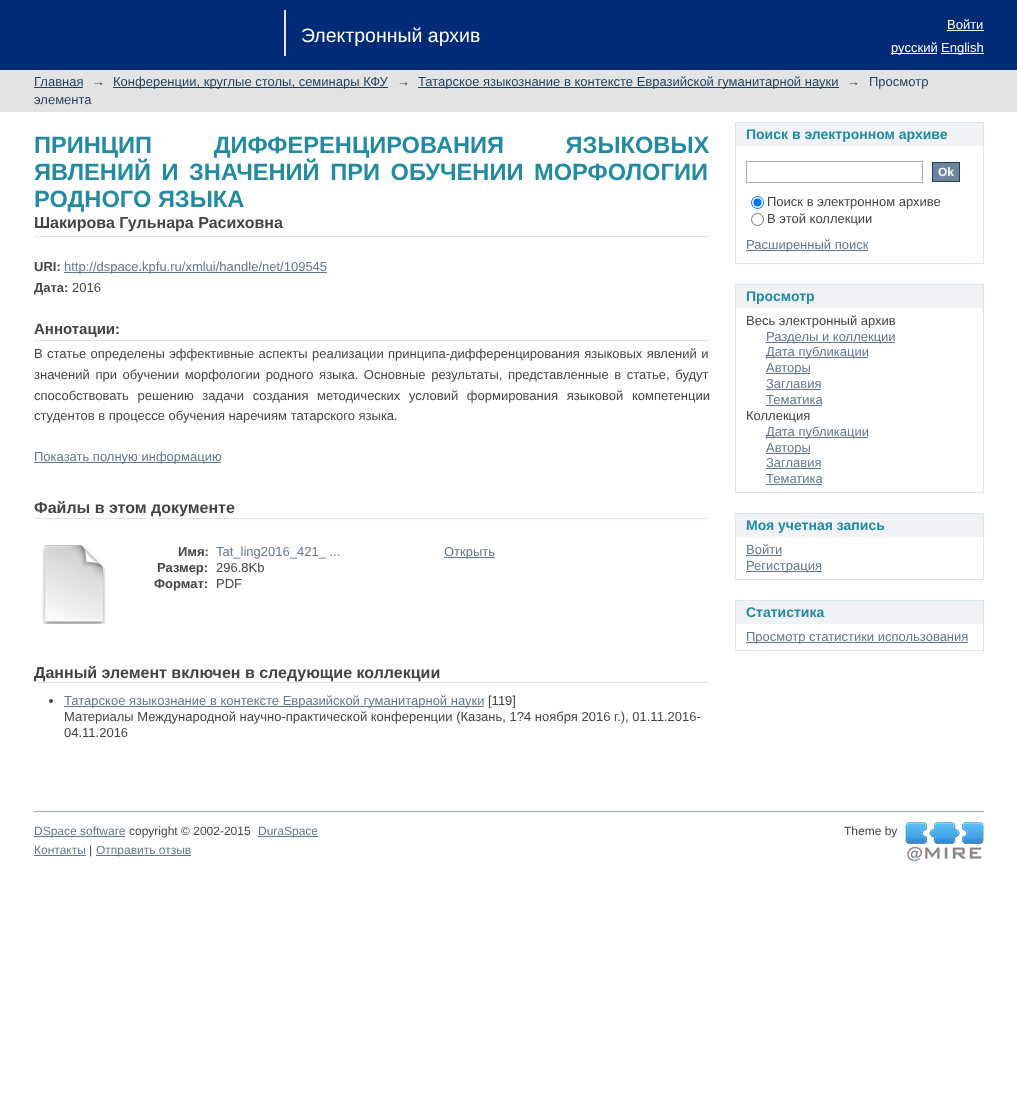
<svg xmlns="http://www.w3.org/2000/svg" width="1017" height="1098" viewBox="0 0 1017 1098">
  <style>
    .t1 { font: 13px Liberation Sans; fill: #fff; }
    .t2 { font: 19.5px Liberation Sans; fill: #fff; }
    .t3 { font: 13px Liberation Sans; fill: #1f3f5e; }
    .t4 { font: bold 23.65px Liberation Sans; fill: #228aa2; }
    .t5 { font: bold 16px Liberation Sans; fill: #444; }
    .t6 { font: bold 13px Liberation Sans; fill: #444; }
    .t7 { font: 13px Liberation Sans; fill: #607890; }
    .t8 { font: 13px Liberation Sans; fill: #444; }
    .t9 { font: bold 15px Liberation Sans; fill: #444; }
    .t10 { font: bold 14px Liberation Sans; fill: #228aa2; }
    .t11 { font: bold 12px Liberation Sans; fill: #fff; }
    .t12 { font: 12px Liberation Sans; fill: #607890; }
    .t13 { font: 12px Liberation Sans; fill: #444; }
  </style>
  <rect width="100%" height="100%" fill="#fff"/>
  <rect x="0" y="0" width="1017" height="70" fill="#012a77"/>
  <text x="947" y="29" class="t1">Войти</text>
  <rect x="947" y="30" width="37" height="1" fill="#fff"/>
  <rect x="284" y="10" width="2" height="46" fill="#e3e3e3"/>
  <text x="301" y="42" class="t2">Электронный архив</text>
  <rect x="891" y="53" width="46" height="1" fill="#fff"/>
  <text x="891" y="52" class="t1">русский</text>
  <rect x="941" y="53" width="43" height="1" fill="#fff"/>
  <text x="941" y="52" class="t1">English</text>
  <rect x="0" y="70" width="1017" height="42" fill="#e3e3e3"/>
  <text x="34" y="86" class="t3">Главная</text>
  <rect x="34" y="87" width="49" height="1" fill="#1f3f5e"/>
  <text x="92" y="86" class="t3">→</text>
  <rect x="113" y="87" width="275" height="1" fill="#1f3f5e"/>
  <text x="113" y="86" class="t3">Конференции, круглые столы, семинары КФУ</text>
  <text x="397" y="86" class="t3">→</text>
  <rect x="418" y="87" width="421" height="1" fill="#1f3f5e"/>
  <text x="418" y="86" class="t3">Татарское языкознание в контексте Евразийской гуманитарной науки</text>
  <text x="847" y="86" class="t3">→</text>
  <text x="869" y="86" class="t3">Просмотр</text>
  <text x="34" y="104" class="t3">элемента</text>
  <text x="34" y="153" word-spacing="55" class="t4">ПРИНЦИП ДИФФЕРЕНЦИРОВАНИЯ ЯЗЫКОВЫХ</text>
  <text x="34" y="180" word-spacing="4" class="t4">ЯВЛЕНИЙ И ЗНАЧЕНИЙ ПРИ ОБУЧЕНИИ МОРФОЛОГИИ</text>
  <text x="34" y="207" class="t4">РОДНОГО ЯЗЫКА</text>
  <rect x="34" y="236" width="675" height="1" fill="#d8e8eb"/>
  <text x="34" y="228" class="t5">Шакирова Гульнара Расиховна</text>
  <text x="34" y="271" class="t6">URI:</text>
  <rect x="64" y="272" width="263" height="1" fill="#607890"/>
  <text x="64" y="271" class="t7">http://dspace.kpfu.ru/xmlui/handle/net/109545</text>
  <text x="34" y="292" class="t6">Дата:</text>
  <text x="72" y="292" class="t8">2016</text>
  <rect x="34" y="340" width="675" height="1" fill="#d8e8eb"/>
  <text x="34" y="334" class="t9">Аннотации:</text>
  <text x="34" y="358" word-spacing="0.75" class="t8">В статье определены эффективные аспекты реализации принципа-дифференцирования языковых явлений и</text>
  <text x="34" y="379" word-spacing="2" class="t8">значений при обучении морфологии родного языка. Основные результаты, представленные в статье, будут</text>
  <text x="34" y="400" word-spacing="5" class="t8">способствовать решению задачи создания методических условий формирования языковой компетенции</text>
  <text x="34" y="420" class="t8">студентов в процессе обучения наречиям татарского языка.</text>
  <rect x="34" y="462" width="187" height="1" fill="#607890"/>
  <text x="34" y="461" class="t7">Показать полную информацию</text>
  <rect x="34" y="518" width="675" height="1" fill="#d8e8eb"/>
  <text x="34" y="513" class="t5">Файлы в этом документе</text>
  <image x="42" y="545" width="64" height="79" href="images/1.png"/>
  <text x="178" y="556" class="t6">Имя:</text>
  <text x="216" y="556" class="t7">Tat_ling2016_421_ ...</text>
  <text x="157" y="572" class="t6">Размер:</text>
  <text x="216" y="572" class="t8">296.8Kb</text>
  <text x="154" y="588" class="t6">Формат:</text>
  <text x="216" y="588" class="t8">PDF</text>
  <rect x="444" y="557" width="51" height="1" fill="#607890"/>
  <text x="444" y="556" class="t7">Открыть</text>
  <rect x="34" y="682" width="675" height="1" fill="#d8e8eb"/>
  <text x="34" y="678" class="t5">Данный элемент включен в следующие коллекции</text>
  <circle cx="51" cy="701" r="2" fill="#444"/>
  <rect x="64" y="706" width="420" height="1" fill="#607890"/>
  <text x="64" y="705" class="t7">Татарское языкознание в контексте Евразийской гуманитарной науки</text>
  <text x="488" y="705" class="t8">[119]</text>
  <text x="64" y="721" class="t8">Материалы Международной научно-практической конференции (Казань, 1?4 ноября 2016 г.), 01.11.2016-</text>
  <text x="64" y="737" class="t8">04.11.2016</text>
  <rect x="736" y="123" width="247" height="23" fill="#f0f2f5"/>
  <rect x="735" y="122" width="249" height="1" fill="#d8e8eb"/>
  <rect x="983" y="122" width="1" height="142" fill="#d8e8eb"/>
  <rect x="735" y="122" width="1" height="24" fill="#d8e8eb"/>
  <text x="746" y="139" class="t10">Поиск в электронном архиве</text>
  <rect x="735" y="263" width="249" height="1" fill="#d8e8eb"/>
  <rect x="735" y="146" width="1" height="118" fill="#d8e8eb"/>
  <rect x="746.5" y="161.5" width="176" height="21" fill="none" stroke="#aaa"/>
  <rect x="932.5" y="162.5" width="27" height="19" fill="#6d859c" stroke="#1f3f5e"/>
  <text x="938" y="176" class="t11">Ok</text>
  <circle cx="757.5" cy="202.5" r="6" fill="none" stroke="#0075ff"/>
  <circle cx="757.5" cy="202.5" r="4" fill="#0075ff"/>
  <text x="767" y="206" class="t8">Поиск в электронном архиве</text>
  <circle cx="757.5" cy="219.5" r="6" fill="none" stroke="#767676"/>
  <text x="767" y="223" class="t8">В этой коллекции</text>
  <rect x="746" y="250" width="122" height="1" fill="#607890"/>
  <text x="746" y="249" class="t7">Расширенный поиск</text>
  <rect x="736" y="285" width="247" height="23" fill="#f0f2f5"/>
  <rect x="735" y="284" width="249" height="1" fill="#d8e8eb"/>
  <rect x="983" y="284" width="1" height="209" fill="#d8e8eb"/>
  <rect x="735" y="284" width="1" height="24" fill="#d8e8eb"/>
  <text x="746" y="301" class="t10">Просмотр</text>
  <rect x="735" y="492" width="249" height="1" fill="#d8e8eb"/>
  <rect x="735" y="308" width="1" height="185" fill="#d8e8eb"/>
  <text x="746" y="325" class="t8">Весь электронный архив</text>
  <rect x="766" y="342" width="129" height="1" fill="#607890"/>
  <text x="766" y="341" class="t7">Разделы и коллекции</text>
  <rect x="766" y="357" width="102" height="1" fill="#607890"/>
  <text x="766" y="356" class="t7">Дата публикации</text>
  <rect x="766" y="373" width="44" height="1" fill="#607890"/>
  <text x="766" y="372" class="t7">Авторы</text>
  <text x="766" y="388" class="t7">Заглавия</text>
  <rect x="766" y="389" width="55" height="1" fill="#607890"/>
  <text x="766" y="404" class="t7">Тематика</text>
  <rect x="766" y="405" width="56" height="1" fill="#607890"/>
  <text x="746" y="420" class="t8">Коллекция</text>
  <rect x="766" y="437" width="102" height="1" fill="#607890"/>
  <text x="766" y="436" class="t7">Дата публикации</text>
  <rect x="766" y="453" width="44" height="1" fill="#607890"/>
  <text x="766" y="452" class="t7">Авторы</text>
  <text x="766" y="467" class="t7">Заглавия</text>
  <rect x="766" y="468" width="55" height="1" fill="#607890"/>
  <text x="766" y="483" class="t7">Тематика</text>
  <rect x="766" y="484" width="56" height="1" fill="#607890"/>
  <rect x="736" y="514" width="247" height="23" fill="#f0f2f5"/>
  <rect x="735" y="513" width="249" height="1" fill="#d8e8eb"/>
  <rect x="983" y="513" width="1" height="67" fill="#d8e8eb"/>
  <rect x="735" y="513" width="1" height="24" fill="#d8e8eb"/>
  <text x="746" y="530" class="t10">Моя учетная запись</text>
  <rect x="735" y="579" width="249" height="1" fill="#d8e8eb"/>
  <rect x="735" y="537" width="1" height="43" fill="#d8e8eb"/>
  <text x="746" y="554" class="t7">Войти</text>
  <rect x="746" y="555" width="36" height="1" fill="#607890"/>
  <rect x="746" y="571" width="76" height="1" fill="#607890"/>
  <text x="746" y="570" class="t7">Регистрация</text>
  <rect x="736" y="601" width="247" height="23" fill="#f0f2f5"/>
  <rect x="735" y="600" width="249" height="1" fill="#d8e8eb"/>
  <rect x="983" y="600" width="1" height="51" fill="#d8e8eb"/>
  <rect x="735" y="600" width="1" height="24" fill="#d8e8eb"/>
  <text x="746" y="617" class="t10">Статистика</text>
  <rect x="735" y="650" width="249" height="1" fill="#d8e8eb"/>
  <rect x="735" y="624" width="1" height="27" fill="#d8e8eb"/>
  <rect x="746" y="642" width="222" height="1" fill="#607890"/>
  <text x="746" y="641" class="t7">Просмотр статистики использования</text>
  <rect x="34" y="811" width="950" height="1" fill="#9cacba"/>
  <rect x="34" y="836" width="91" height="1" fill="#607890"/>
  <text x="34" y="835" class="t12">DSpace software</text>
  <text x="129" y="835" class="t13">copyright © 2002-2015</text>
  <rect x="258" y="836" width="60" height="1" fill="#607890"/>
  <text x="258" y="835" class="t12">DuraSpace</text>
  <text x="844" y="835" class="t13">Theme by</text>
  <image x="905" y="822" width="79" height="40" href="images/2.png"/>
  <text x="34" y="854" class="t12">Контакты</text>
  <rect x="34" y="855" width="52" height="1" fill="#607890"/>
  <text x="89" y="854" class="t13">|</text>
  <rect x="96" y="855" width="95" height="1" fill="#607890"/>
  <text x="96" y="854" class="t12">Отправить отзыв</text>
</svg>
